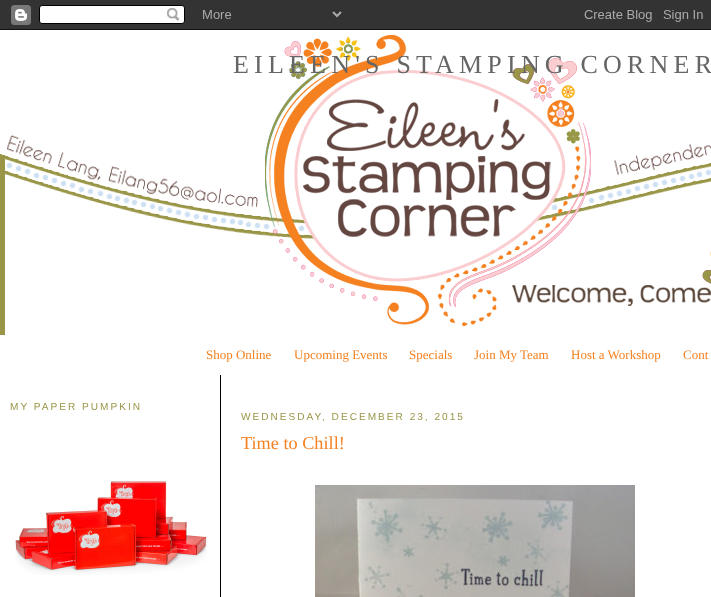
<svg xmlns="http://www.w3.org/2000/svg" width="711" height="597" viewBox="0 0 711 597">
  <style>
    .t1 { font: 26px Liberation Serif; letter-spacing: 5.2px; fill: #666; }
    .t2 { font: 13px Liberation Serif; fill: #f58120; }
    .t3 { font: 10.1px Liberation Sans; letter-spacing: 2px; fill: #9a9648; }
    .t4 { font: 18.25px Liberation Serif; fill: #f58120; }
  </style>
  <rect width="100%" height="100%" fill="#fff"/>
  <image x="0" y="0" width="711" height="30" href="images/1.png"/>
  <image x="0" y="35" width="711" height="300" href="images/2.png"/>
  <text x="233" y="73" class="t1">EILEEN'S STAMPING CORNER</text>
  <text x="206" y="359" class="t2">Shop Online</text>
  <text x="294" y="359" class="t2">Upcoming Events</text>
  <text x="409" y="359" class="t2">Specials</text>
  <text x="474" y="359" class="t2">Join My Team</text>
  <text x="571" y="359" class="t2">Host a Workshop</text>
  <text x="683" y="359" class="t2">Cont</text>
  <text x="10" y="410" class="t3">MY PAPER PUMPKIN</text>
  <image x="15" y="481" width="192" height="94" href="images/3.png"/>
  <rect x="220" y="375" width="1" height="222" fill="#000"/>
  <text x="241" y="420" class="t3">WEDNESDAY, DECEMBER 23, 2015</text>
  <text x="241" y="449" class="t4">Time to Chill!</text>
  <image x="315" y="485" width="320" height="112" href="images/4.png"/>
</svg>
